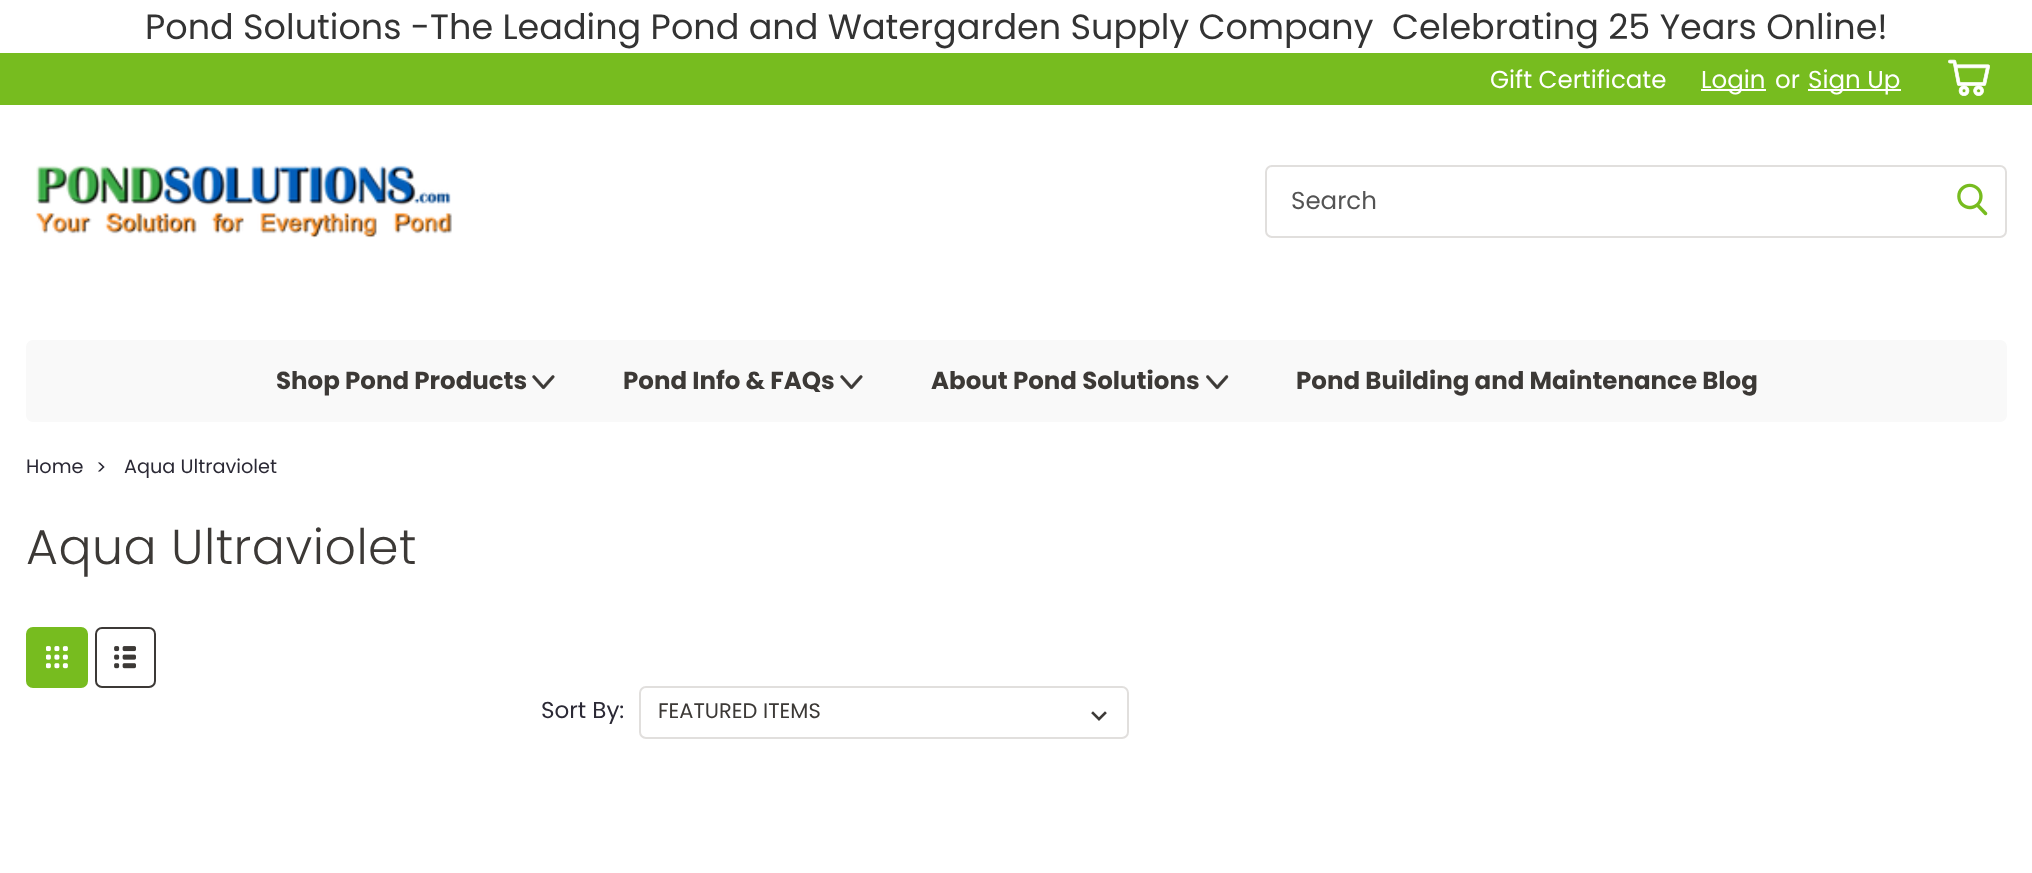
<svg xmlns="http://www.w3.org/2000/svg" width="2032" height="873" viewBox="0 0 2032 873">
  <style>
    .t1 { font: 35px Poppins; fill: #333; }
    .t2 { font: 24.5px Poppins; fill: #fff; }
    .t3 { font: 24.5px Poppins; fill: #545454; }
    .t4 { font: bold 24.5px Poppins; fill: #3c3936; }
    .t5 { font: 19.25px Poppins; fill: #2b2935; }
    .t6 { font: 300 49px Poppins; letter-spacing: 0.5px; fill: #3c3936; }
    .t7 { font: 23px Poppins; fill: #2b2935; }
    .t8 { font: 21px Poppins; fill: #3c3936; }
  </style>
  <rect width="100%" height="100%" fill="#fff"/>
  <text x="145" y="39" class="t1" xml:space="preserve">Pond Solutions -The Leading Pond and Watergarden Supply Company  Celebrating 25 Years Online!</text>
  <rect x="0" y="53" width="2032" height="52" fill="#77bc1f"/>
  <text x="1490" y="88" class="t2">Gift Certificate</text>
  <rect x="1701" y="89" width="65" height="2" fill="#fff"/>
  <text x="1701" y="88" class="t2">Login</text>
  <text x="1775" y="88" class="t2">or</text>
  <rect x="1808" y="89" width="93" height="2" fill="#fff"/>
  <text x="1808" y="88" class="t2">Sign Up</text>
  <image x="1948" y="59" width="42" height="37" href="images/1.png"/>
  <image x="35" y="165" width="417" height="73" href="images/2.png"/>
  <rect x="1266" y="166" width="740" height="71" rx="6" fill="none" stroke="#e1dfdd" stroke-width="2"/>
  <text x="1291" y="209" class="t3">Search</text>
  <image x="1957" y="183" width="31" height="33" href="images/3.png"/>
  <rect x="26" y="340" width="1981" height="82" rx="7" fill="#f9f9f9"/>
  <text x="276" y="389" class="t4">Shop Pond Products</text>
  <image x="532" y="375" width="23" height="15" href="images/4.png"/>
  <text x="623" y="389" class="t4">Pond Info &amp; FAQs</text>
  <image x="840" y="375" width="23" height="15" href="images/4.png"/>
  <text x="931" y="389" class="t4">About Pond Solutions</text>
  <image x="1206" y="375" width="23" height="15" href="images/5.png"/>
  <text x="1296" y="389" class="t4">Pond Building and Maintenance Blog</text>
  <text x="26" y="473" class="t5">Home</text>
  <text x="96" y="474" class="t5">&gt;</text>
  <text x="124" y="473" class="t5">Aqua Ultraviolet</text>
  <text x="26" y="564" class="t6">Aqua Ultraviolet</text>
  <rect x="27" y="628" width="60" height="59" rx="6" fill="#77bc1f" stroke="#77bc1f" stroke-width="2"/>
  <image x="46" y="646" width="22" height="23" href="images/6.png"/>
  <rect x="96" y="628" width="59" height="59" rx="6" fill="none" stroke="#3c3936" stroke-width="2"/>
  <image x="114" y="646" width="22" height="23" href="images/7.png"/>
  <text x="541" y="718" class="t7">Sort By:</text>
  <image x="1091" y="711" width="16" height="10" href="images/8.png"/>
  <rect x="640" y="687" width="488" height="51" rx="6" fill="none" stroke="#e1dfdd" stroke-width="2"/>
  <text x="658" y="718" class="t8">FEATURED ITEMS</text>
</svg>
